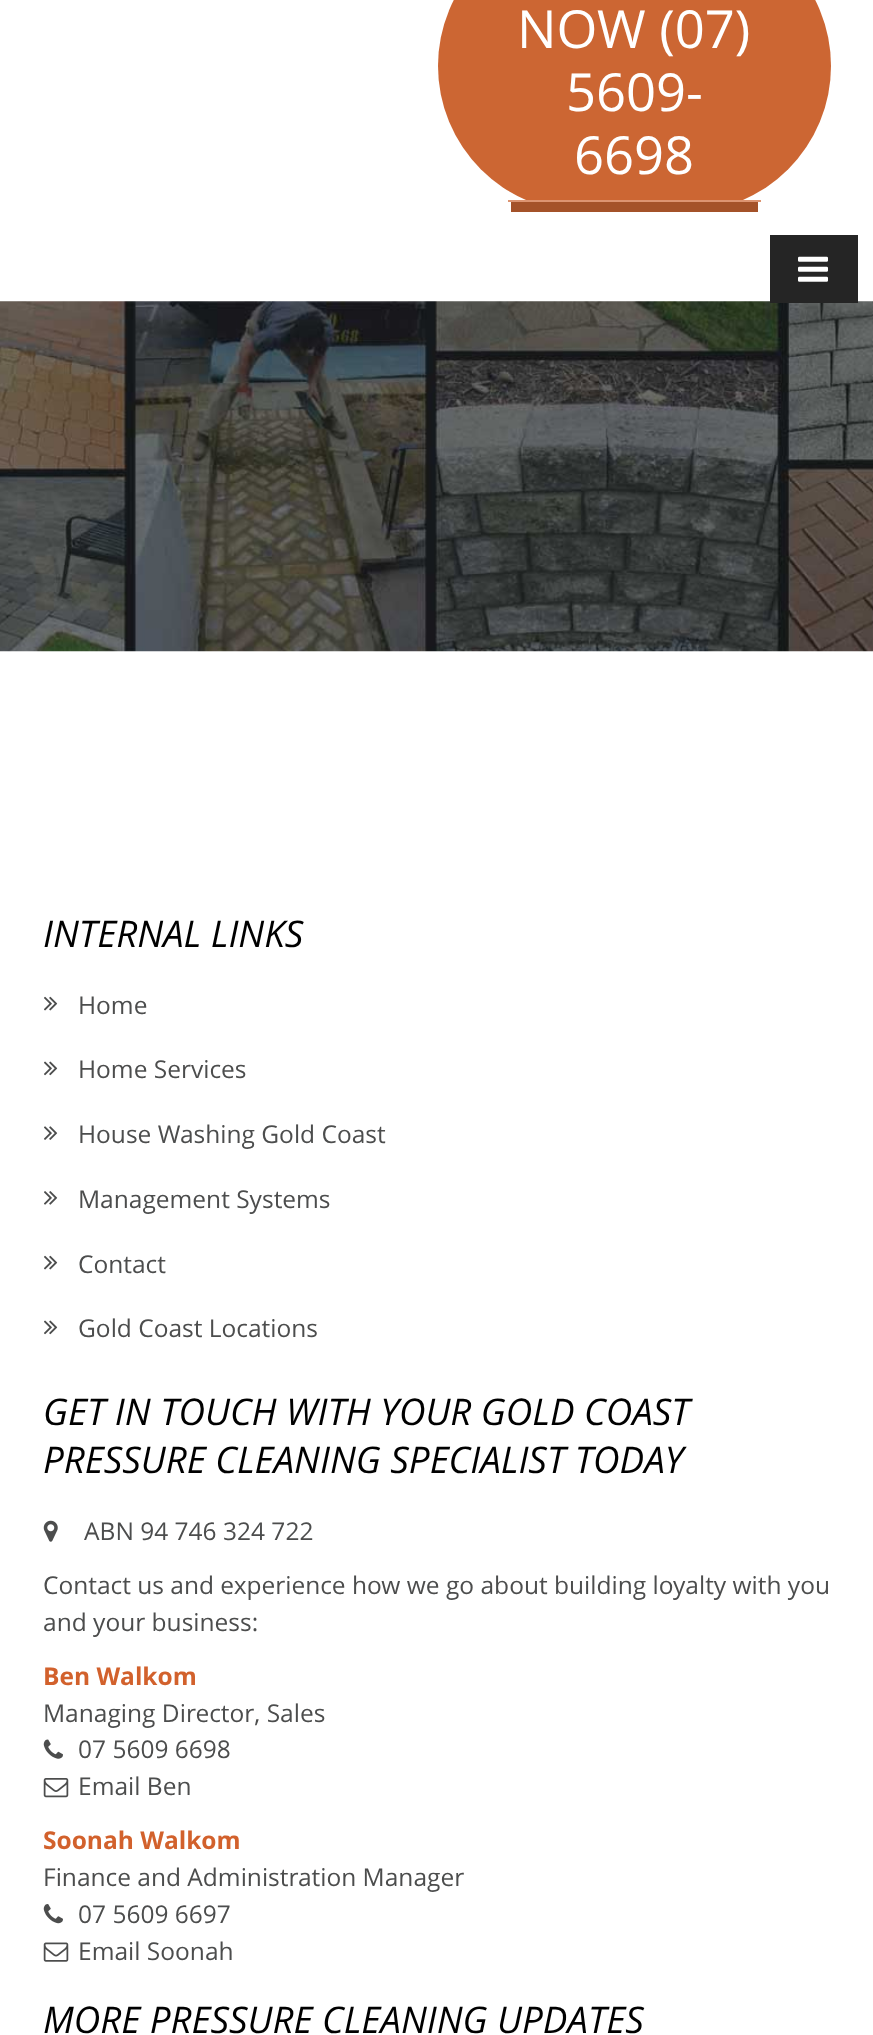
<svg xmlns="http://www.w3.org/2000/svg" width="873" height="2035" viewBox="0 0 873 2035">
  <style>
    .t1 { font: 52.5px Open Sans; fill: #fff; }
    .t2 { font: italic 36.75px Open Sans; fill: #000; }
    .t3 { font: 24.5px Open Sans; fill: #4c4d4d; }
    .t4 { font: bold 24.5px Open Sans; fill: #d2612c; }
  </style>
  <rect width="100%" height="100%" fill="#fff"/>
  <rect x="438" y="-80" width="393" height="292" rx="146" fill="#c63"/>
  <rect x="511" y="202" width="247" height="10" fill="#a45229"/>
  <rect x="508" y="200" width="253" height="2" fill="#dc9471"/>
  <text x="517" y="48" class="t1">NOW (07)</text>
  <text x="566" y="111" class="t1">5609-</text>
  <text x="574" y="174" class="t1">6698</text>
  <image x="0" y="301" width="873" height="351" href="images/2.png"/>
  <rect x="770" y="235" width="88" height="68" fill="#252525"/>
  <image x="798" y="256" width="30" height="26" href="images/1.png"/>
  <text x="43" y="947" class="t2">INTERNAL LINKS</text>
  <image x="44" y="996" width="14" height="15" href="images/3.png"/>
  <text x="78" y="1014" class="t3">Home</text>
  <image x="44" y="1061" width="14" height="15" href="images/4.png"/>
  <text x="78" y="1078" class="t3">Home Services</text>
  <image x="44" y="1126" width="14" height="14" href="images/5.png"/>
  <text x="78" y="1143" class="t3">House Washing Gold Coast</text>
  <image x="44" y="1191" width="14" height="14" href="images/6.png"/>
  <text x="78" y="1208" class="t3">Management Systems</text>
  <image x="44" y="1255" width="14" height="15" href="images/3.png"/>
  <text x="78" y="1273" class="t3">Contact</text>
  <image x="44" y="1320" width="14" height="15" href="images/4.png"/>
  <text x="78" y="1337" class="t3">Gold Coast Locations</text>
  <text x="43" y="1425" class="t2">GET IN TOUCH WITH YOUR GOLD COAST</text>
  <text x="43" y="1473" class="t2">PRESSURE CLEANING SPECIALIST TODAY</text>
  <image x="43" y="1520" width="15" height="22" href="images/7.png"/>
  <text x="84" y="1540" class="t3">ABN 94 746 324 722</text>
  <text x="43" y="1594" class="t3">Contact us and experience how we go about building loyalty with you</text>
  <text x="43" y="1631" class="t3">and your business:</text>
  <text x="43" y="1685" class="t4">Ben Walkom</text>
  <text x="43" y="1722" class="t3">Managing Director, Sales</text>
  <image x="43" y="1739" width="20" height="20" href="images/8.png"/>
  <text x="78" y="1758" class="t3">07 5609 6698</text>
  <image x="43" y="1778" width="26" height="20" href="images/9.png"/>
  <text x="78" y="1795" class="t3">Email Ben</text>
  <text x="43" y="1849" class="t4">Soonah Walkom</text>
  <text x="43" y="1886" class="t3">Finance and Administration Manager</text>
  <image x="43" y="1904" width="20" height="20" href="images/10.png"/>
  <text x="78" y="1923" class="t3">07 5609 6697</text>
  <image x="43" y="1942" width="26" height="20" href="images/11.png"/>
  <text x="78" y="1960" class="t3">Email Soonah</text>
  <text x="43" y="2033" class="t2">MORE PRESSURE CLEANING UPDATES</text>
</svg>
